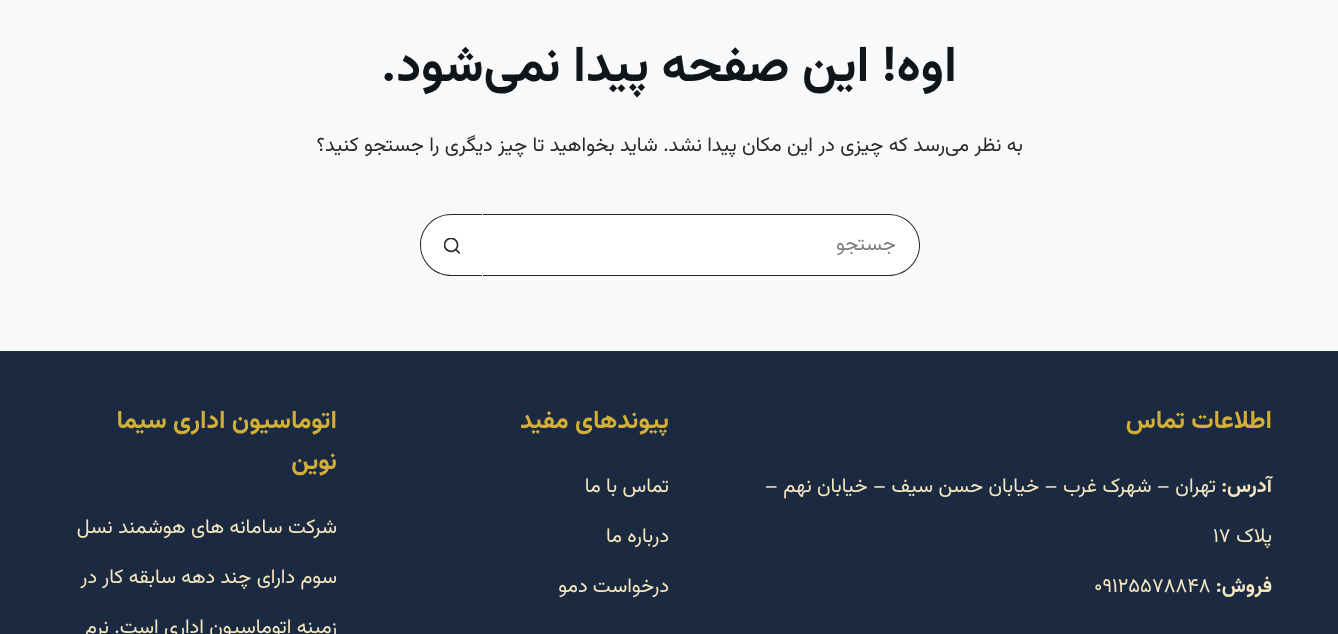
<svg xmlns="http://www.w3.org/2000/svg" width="1338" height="634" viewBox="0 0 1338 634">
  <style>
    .t1 { font: bold 50px Vazirmatn; direction: rtl; fill: #111518; }
    .t2 { font: 20px Vazirmatn; direction: rtl; fill: #282828; }
    .t3 { font: 20px Vazirmatn; direction: rtl; fill: #7e7e7e; }
    .t4 { font: bold 25px Vazirmatn; direction: rtl; fill: #d4af37; }
    .t5 { font: bold 20px Vazirmatn; direction: rtl; fill: #f5e7be; }
    .t6 { font: 20px Vazirmatn; direction: rtl; fill: #f5e7be; }
    .t7 { font: 20px Vazirmatn; fill: #f5e7be; }
  </style>
  <rect width="100%" height="100%" fill="#f8f9fb"/>
  <text x="957" y="81" class="t1">اوه! این صفحه پیدا نمی‌شود.</text>
  <text x="1023" y="151" class="t2">به نظر می‌رسد که چیزی در این مکان پیدا نشد. شاید بخواهید تا چیز دیگری را جستجو کنید؟</text>
  <path d="M483 214H889C906 214 920 228 920 245C920 262 906 276 889 276H483Z" fill="#fff"/>
  <path d="M482 214H889C906 214 920 228 920 245C920 262 906 276 889 276H482ZM482 215H889C905 215 919 228 919 245C919 262 905 275 889 275H482Z" fill="#282828" fill-rule="evenodd"/>
  <text x="896" y="250" class="t3">جستجو</text>
  <path d="M451 214H483V276H451C434 276 420 262 420 245C420 228 434 214 451 214Z" fill="#fff"/>
  <path d="M451 214H482V276H451C434 276 420 262 420 245C420 228 434 214 451 214ZM451 215H482V275H451C435 275 421 262 421 245C421 228 435 215 451 215Z" fill="#282828" fill-rule="evenodd"/>
  <image x="444" y="238" width="16" height="16" href="images/1.png"/>
  <rect x="0" y="351" width="1338" height="283" fill="#1b2a41"/>
  <text x="1272" y="428" class="t4">اطلاعات تماس</text>
  <text x="1272" y="492" class="t5">آدرس:</text>
  <text x="1216" y="492" class="t6">تهران – شهرک غرب – خیابان حسن سیف – خیابان نهم –</text>
  <text x="1272" y="542" class="t6">پلاک</text>
  <text x="1213" y="542" class="t7">۱۷</text>
  <text x="1272" y="592" class="t5">فروش:</text>
  <text x="1094" y="592" class="t7">۰۹۱۲۵۵۷۸۸۴۸</text>
  <text x="669" y="428" class="t4">پیوندهای مفید</text>
  <text x="669" y="492" class="t6">تماس با ما</text>
  <text x="669" y="542" class="t6">درباره ما</text>
  <text x="669" y="592" class="t6">درخواست دمو</text>
  <text x="337" y="428" class="t4">اتوماسیون اداری سیما</text>
  <text x="337" y="469" class="t4">نوین</text>
  <text x="337" y="533" class="t6">شرکت سامانه های هوشمند نسل</text>
  <text x="337" y="583" class="t6">سوم دارای چند دهه سابقه کار در</text>
  <text x="337" y="633" class="t6">زمینه اتوماسیون اداری است. نرم</text>
</svg>
